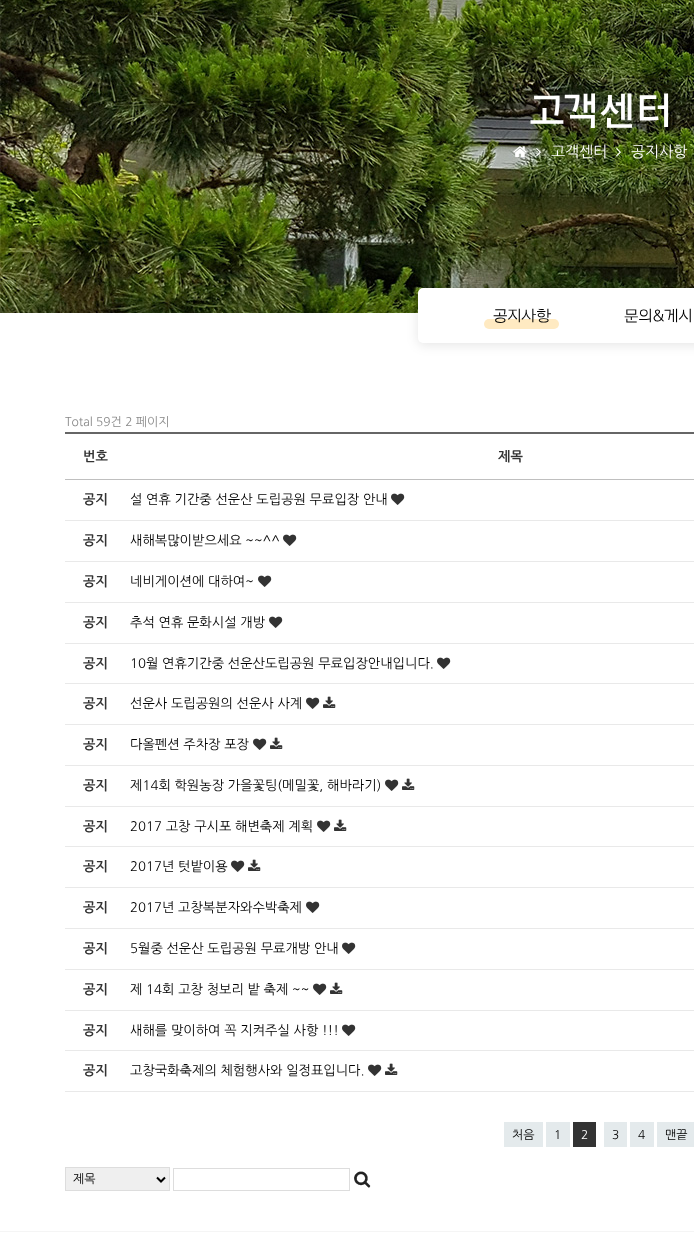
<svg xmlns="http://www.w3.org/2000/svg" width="694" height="1259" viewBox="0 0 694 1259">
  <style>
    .t1 { font: 600 40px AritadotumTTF; fill: #fff; }
    .t2 { font: 15px NanumGothic; fill: #fff; }
    .t3 { font: 500 16px AritadotumTTF; fill: #000; }
    .t4 { font: 12px NanumGothic; fill: #888; }
    .t5 { font: bold 13.2px NanumGothic; fill: #333; }
    .t6 { font: 13.2px NanumGothic; fill: #000; }
    .t7 { font: 12px NanumGothic; fill: #000; }
    .t8 { font: 12px NanumGothic; fill: #fff; }
  </style>
  <rect width="100%" height="100%" fill="#fff"/>
  <image x="0" y="0" width="694" height="313" href="images/1.png"/>
  <text x="528" y="124" class="t1">고객센터</text>
  <image x="513" y="146" width="14" height="11" href="images/2.png"/>
  <image x="536" y="148" width="5" height="9" href="images/3.png"/>
  <text x="551" y="157" class="t2">고객센터</text>
  <image x="616" y="148" width="5" height="9" href="images/4.png"/>
  <text x="631" y="157" class="t2">공지사항</text>
  <rect x="418" y="290" width="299" height="55" rx="5" fill="#0000001a" filter="blur(6px)"/>
  <rect x="418" y="288" width="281" height="55" rx="5" fill="#fff"/>
  <rect x="484" y="319" width="75" height="10" rx="5" fill="#ffeac2"/>
  <text x="493" y="321" class="t3">공지사항</text>
  <text x="624" y="321" class="t3">문의＆게시</text>
  <text x="65" y="426" class="t4">Total 59건 2 페이지</text>
  <rect x="65" y="432" width="629" height="2" fill="#666"/>
  <text x="83" y="461" class="t5">번호</text>
  <rect x="65" y="479" width="629" height="1" fill="#bfbfbf"/>
  <text x="498" y="461" class="t5">제목</text>
  <text x="83" y="504" class="t5">공지</text>
  <text x="130" y="504" class="t6">설 연휴 기간중 선운산 도립공원 무료입장 안내</text>
  <image x="391" y="493" width="14" height="12" href="images/5.png"/>
  <text x="83" y="545" class="t5">공지</text>
  <rect x="65" y="520" width="629" height="1" fill="#e9e9e9"/>
  <text x="130" y="545" class="t6">새해복많이받으세요 ~~^^</text>
  <image x="283" y="534" width="14" height="12" href="images/5.png"/>
  <text x="83" y="586" class="t5">공지</text>
  <rect x="65" y="561" width="629" height="1" fill="#e9e9e9"/>
  <text x="130" y="586" class="t6">네비게이션에 대하여~</text>
  <image x="258" y="575" width="14" height="12" href="images/5.png"/>
  <text x="83" y="627" class="t5">공지</text>
  <rect x="65" y="602" width="629" height="1" fill="#e9e9e9"/>
  <text x="130" y="627" class="t6">추석 연휴 문화시설 개방</text>
  <image x="269" y="616" width="14" height="12" href="images/5.png"/>
  <text x="83" y="668" class="t5">공지</text>
  <rect x="65" y="643" width="629" height="1" fill="#e9e9e9"/>
  <text x="130" y="668" class="t6">10월 연휴기간중 선운산도립공원 무료입장안내입니다.</text>
  <image x="437" y="657" width="14" height="12" href="images/5.png"/>
  <text x="83" y="708" class="t5">공지</text>
  <rect x="65" y="683" width="629" height="1" fill="#e9e9e9"/>
  <text x="130" y="708" class="t6">선운사 도립공원의 선운사 사계</text>
  <image x="306" y="697" width="14" height="12" href="images/5.png"/>
  <image x="323" y="696" width="13" height="12" href="images/6.png"/>
  <text x="83" y="749" class="t5">공지</text>
  <rect x="65" y="724" width="629" height="1" fill="#e9e9e9"/>
  <text x="130" y="749" class="t6">다올펜션 주차장 포장</text>
  <image x="253" y="738" width="14" height="12" href="images/5.png"/>
  <image x="270" y="737" width="13" height="12" href="images/6.png"/>
  <text x="83" y="790" class="t5">공지</text>
  <rect x="65" y="765" width="629" height="1" fill="#e9e9e9"/>
  <text x="130" y="790" class="t6">제14회 학원농장 가을꽃팅(메밀꽃, 해바라기)</text>
  <image x="385" y="779" width="14" height="12" href="images/5.png"/>
  <image x="402" y="778" width="13" height="12" href="images/6.png"/>
  <text x="83" y="831" class="t5">공지</text>
  <rect x="65" y="806" width="629" height="1" fill="#e9e9e9"/>
  <text x="130" y="831" class="t6">2017 고창 구시포 해변축제 계획</text>
  <image x="317" y="820" width="14" height="12" href="images/5.png"/>
  <image x="334" y="819" width="13" height="12" href="images/6.png"/>
  <text x="83" y="871" class="t5">공지</text>
  <rect x="65" y="846" width="629" height="1" fill="#e9e9e9"/>
  <text x="130" y="871" class="t6">2017년 텃밭이용</text>
  <image x="231" y="860" width="14" height="12" href="images/5.png"/>
  <image x="248" y="859" width="13" height="12" href="images/6.png"/>
  <text x="83" y="912" class="t5">공지</text>
  <rect x="65" y="887" width="629" height="1" fill="#e9e9e9"/>
  <text x="130" y="912" class="t6">2017년 고창복분자와수박축제</text>
  <image x="306" y="901" width="14" height="12" href="images/5.png"/>
  <text x="83" y="953" class="t5">공지</text>
  <rect x="65" y="928" width="629" height="1" fill="#e9e9e9"/>
  <text x="130" y="953" class="t6">5월중 선운산 도립공원 무료개방 안내</text>
  <image x="342" y="942" width="14" height="12" href="images/5.png"/>
  <text x="83" y="994" class="t5">공지</text>
  <rect x="65" y="969" width="629" height="1" fill="#e9e9e9"/>
  <text x="130" y="994" class="t6">제 14회 고창 청보리 밭 축제 ~~</text>
  <image x="313" y="983" width="14" height="12" href="images/5.png"/>
  <image x="330" y="982" width="13" height="12" href="images/6.png"/>
  <text x="83" y="1035" class="t5">공지</text>
  <rect x="65" y="1010" width="629" height="1" fill="#e9e9e9"/>
  <text x="130" y="1035" class="t6">새해를 맞이하여 꼭 지켜주실 사항 !!!</text>
  <image x="342" y="1024" width="14" height="12" href="images/5.png"/>
  <text x="83" y="1075" class="t5">공지</text>
  <rect x="65" y="1050" width="629" height="1" fill="#e9e9e9"/>
  <rect x="65" y="1091" width="629" height="1" fill="#e9e9e9"/>
  <text x="130" y="1075" class="t6">고창국화축제의 체험행사와 일정표입니다.</text>
  <image x="368" y="1064" width="14" height="12" href="images/5.png"/>
  <image x="385" y="1063" width="13" height="12" href="images/6.png"/>
  <rect x="504" y="1122" width="39" height="25" fill="#e4eaec"/>
  <text x="512" y="1139" class="t7">처음</text>
  <rect x="546" y="1122" width="24" height="25" fill="#e4eaec"/>
  <text x="554" y="1139" class="t7">1</text>
  <rect x="573" y="1122" width="23" height="25" fill="#333"/>
  <text x="581" y="1139" class="t8">2</text>
  <rect x="604" y="1122" width="23" height="25" fill="#e4eaec"/>
  <text x="612" y="1139" class="t7">3</text>
  <rect x="630" y="1122" width="24" height="25" fill="#e4eaec"/>
  <text x="638" y="1139" class="t7">4</text>
  <rect x="657" y="1122" width="37" height="25" fill="#e4eaec"/>
  <text x="665" y="1139" class="t7">맨끝</text>
  <rect x="65.5" y="1167.5" width="104" height="23" fill="#efefef" stroke="#ddd"/>
  <path d="M157 1177.5L161 1181.5L165 1177.5" fill="none" stroke="#000" stroke-width="2"/>
  <text x="73" y="1183" class="t7">제목</text>
  <rect x="173.5" y="1168.5" width="176" height="22" fill="none" stroke="#ddd"/>
  <image x="354" y="1171" width="17" height="17" href="images/7.png"/>
  <rect x="0" y="1231" width="694" height="1" fill="#f5f5f5"/>
</svg>
